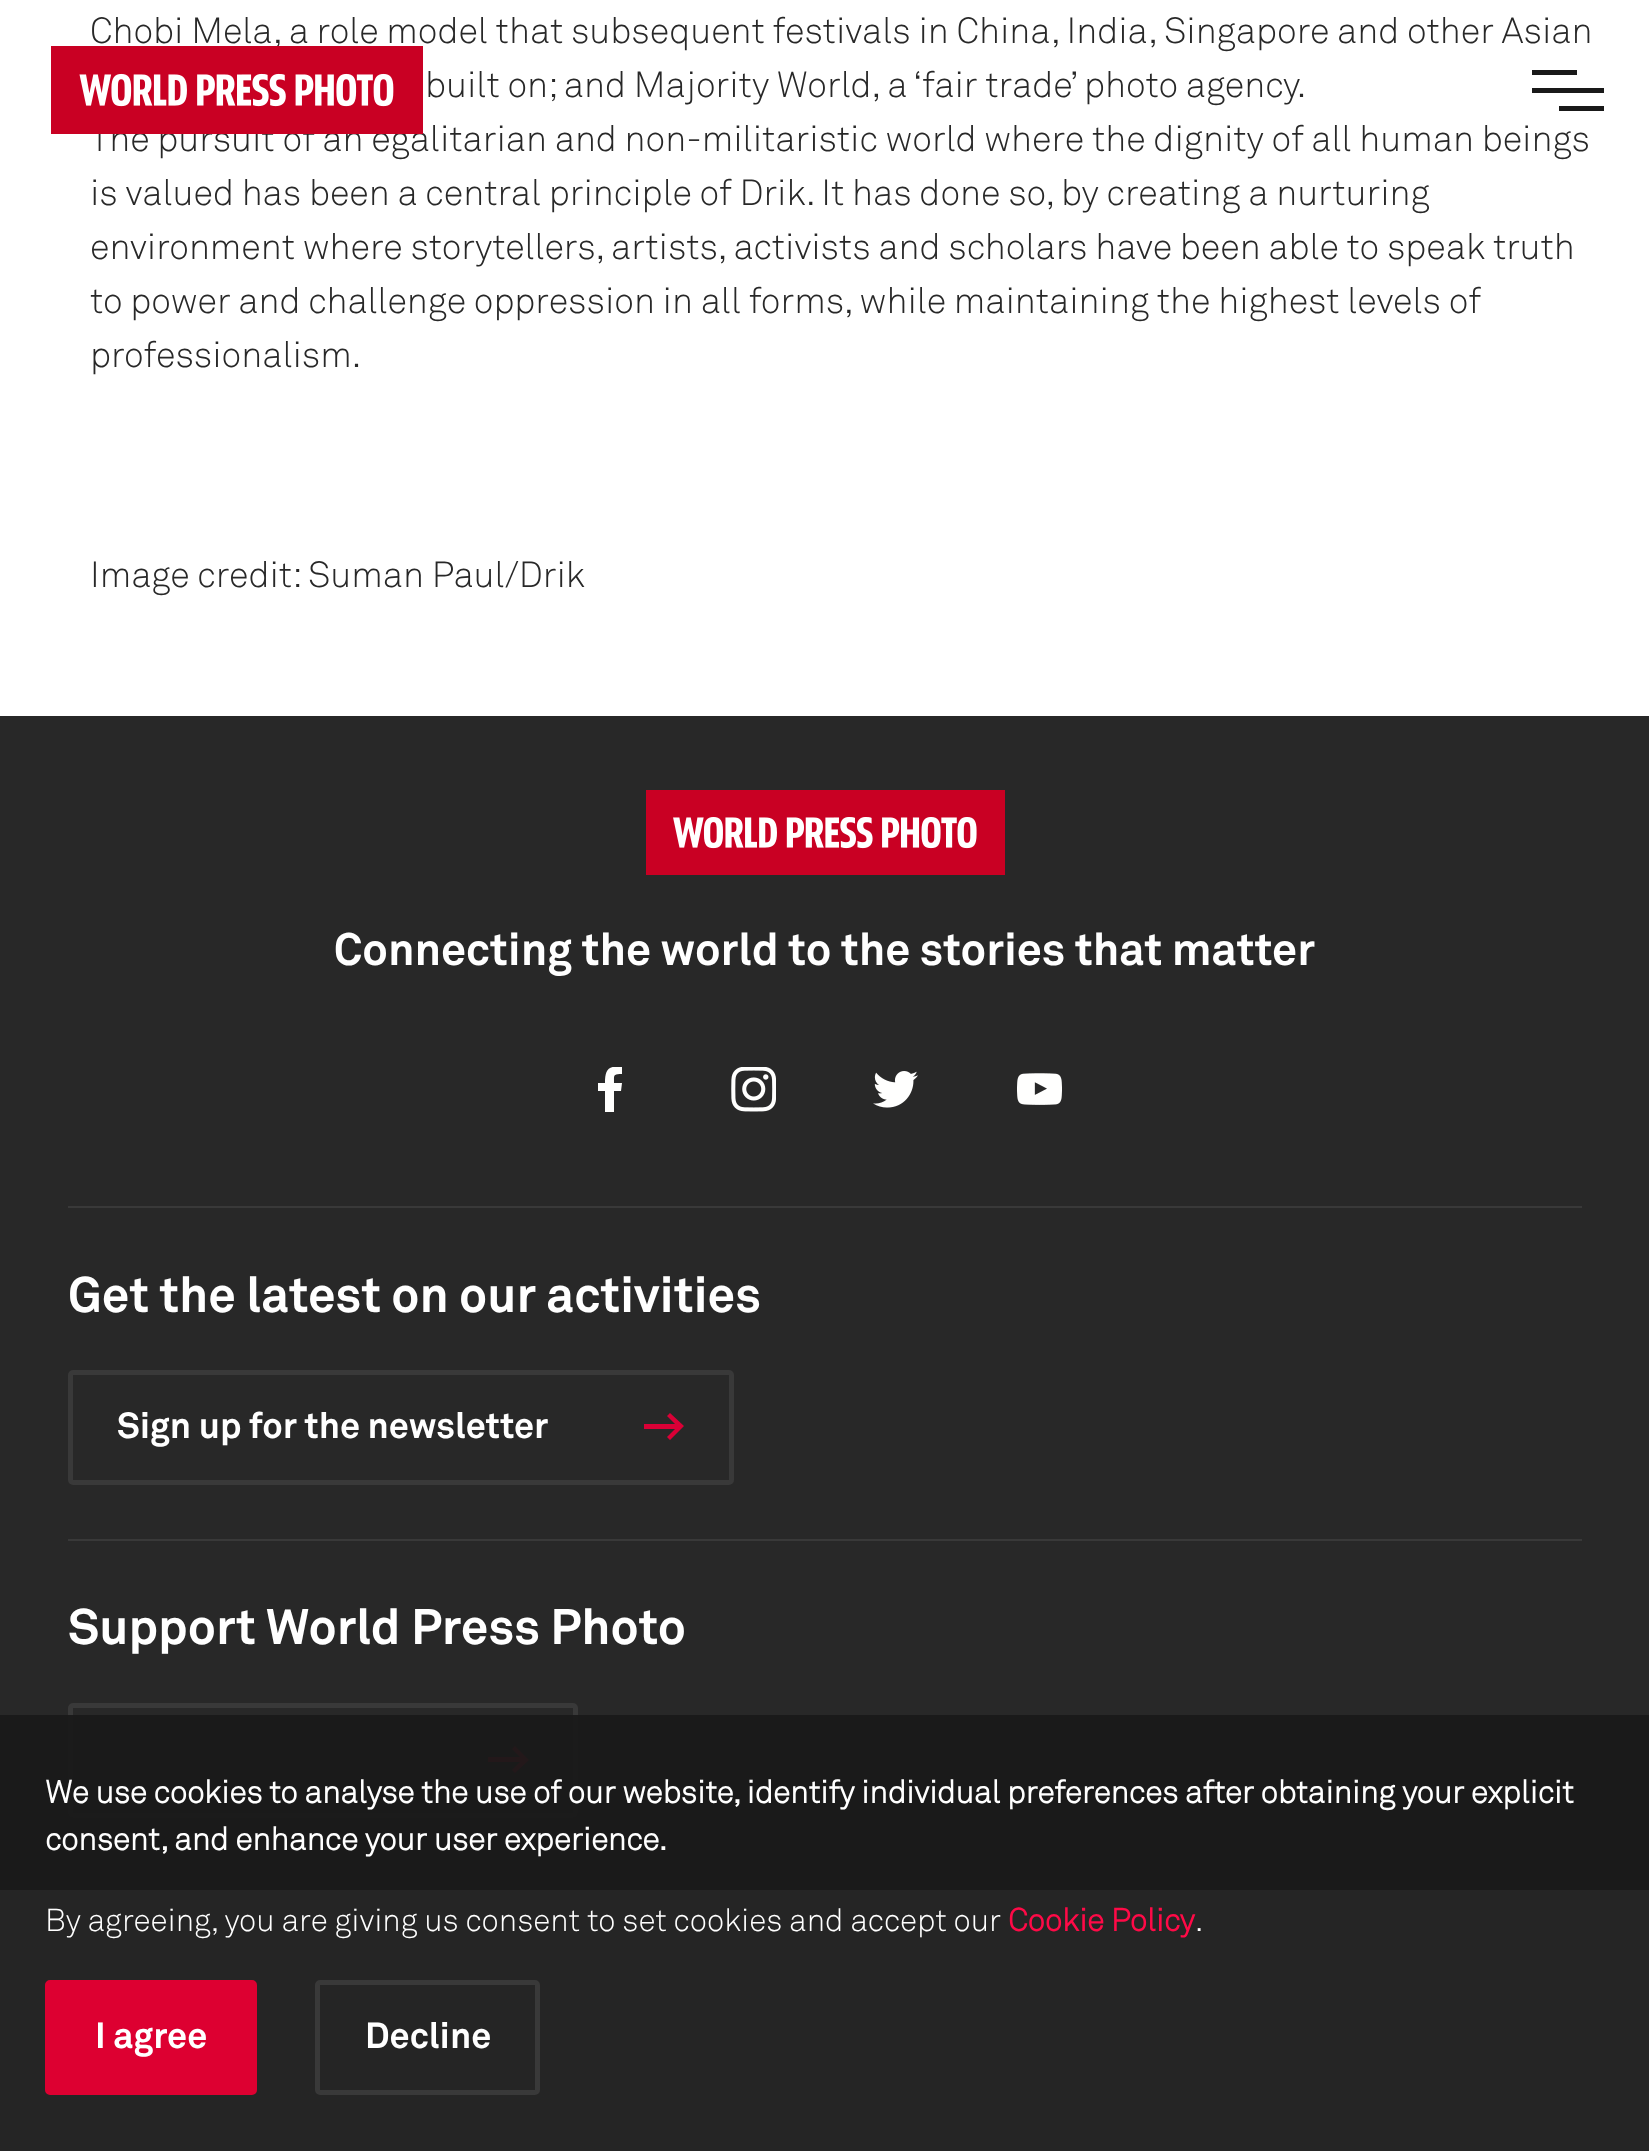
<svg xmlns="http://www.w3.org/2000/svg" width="1649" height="2151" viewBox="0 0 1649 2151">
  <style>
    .t1 { font: 300 36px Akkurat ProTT; fill: #282828; }
    .t2 { font: bold 31.5px 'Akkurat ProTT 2'; fill: #fff; }
    .t3 { font: 300 31.5px Akkurat ProTT; fill: #fff; }
    .t4 { font: bold 31.5px 'Akkurat ProTT 2'; fill: #ff0a47; }
    .t5 { font: bold 36px Akkurat ProTT; fill: #fff; }
    .t6 { font: bold 45px Akkurat ProTT; fill: #fff; }
    .t7 { font: bold 49.5px Akkurat ProTT; fill: #fff; }
  </style>
  <defs>
    <clipPath id="clip1"><rect x="488" y="1746" width="41" height="27"/></clipPath>
    <clipPath id="clip2"><rect x="587" y="1067" width="45" height="45"/></clipPath>
    <clipPath id="clip3"><rect x="644" y="1413" width="40" height="27"/></clipPath>
  </defs>
  <rect width="100%" height="100%" fill="#fff"/>
  <text x="90" y="43" class="t1">Chobi Mela, a role model that subsequent festivals in China, India, Singapore and other Asian</text>
  <text x="425" y="97" class="t1">built on; and Majority World, a ‘fair trade’ photo agency.</text>
  <text x="90" y="151" class="t1">The pursuit of an egalitarian and non-militaristic world where the dignity of all human beings</text>
  <text x="90" y="205" class="t1">is valued has been a central principle of Drik. It has done so, by creating a nurturing</text>
  <text x="90" y="259" class="t1">environment where storytellers, artists, activists and scholars have been able to speak truth</text>
  <text x="90" y="313" class="t1">to power and challenge oppression in all forms, while maintaining the highest levels of</text>
  <text x="90" y="367" class="t1">professionalism.</text>
  <text x="90" y="587" class="t1">Image credit: Suman Paul/Drik</text>
  <rect x="0" y="716" width="1649" height="1174" fill="#282828"/>
  <rect x="70.5" y="1705.5" width="505" height="110" rx="2.5" fill="none" stroke="#393939" stroke-width="5"/>
  <g clip-path="url(#clip1)">
    <path d="M475 1762H520L512 1770L515 1773L529 1760L515 1746L512 1749L520 1757H475Z" fill="#da0036" fill-rule="evenodd"/>
  </g>
  <rect x="0" y="1715" width="1649" height="436" fill="#191919f2"/>
  <text x="45" y="1803" class="t2">We use cookies to analyse the use of our website, identify individual preferences after obtaining your explicit</text>
  <text x="45" y="1850" class="t2">consent, and enhance your user experience.</text>
  <text x="45" y="1931" class="t3">By agreeing, you are giving us consent to set cookies and accept our</text>
  <text x="1008" y="1931" class="t4">Cookie Policy</text>
  <text x="1195" y="1931" class="t3">.</text>
  <rect x="47.5" y="1982.5" width="207" height="110" rx="2.5" fill="#dd0031" stroke="#dd0031" stroke-width="5"/>
  <text x="95" y="2048" class="t5">I agree</text>
  <rect x="317.5" y="1982.5" width="220" height="110" rx="2.5" fill="none" stroke="#393939" stroke-width="5"/>
  <text x="365" y="2048" class="t5">Decline</text>
  <image x="51" y="46" width="372" height="88" href="images/1.png"/>
  <rect x="1532" y="70" width="45" height="5" fill="#191919"/>
  <rect x="1532" y="88" width="72" height="5" fill="#191919"/>
  <rect x="1559" y="106" width="45" height="5" fill="#191919"/>
  <rect x="68" y="1206" width="1514" height="2" fill="#393939"/>
  <image x="646" y="790" width="359" height="85" href="images/2.png"/>
  <text x="334" y="965" class="t6">Connecting the world to the stories that matter</text>
  <g clip-path="url(#clip2)">
    <path d="M621 1091L622 1083H614C614 1075 613 1074 622 1074V1067C608 1065 605 1070 605 1083H598V1091H605V1112H614V1091H621" fill="#fffffe" fill-rule="evenodd"/>
  </g>
  <image x="731" y="1067" width="45" height="45" href="images/3.png"/>
  <image x="873" y="1071" width="45" height="37" href="images/4.png"/>
  <image x="1017" y="1073" width="45" height="32" href="images/5.png"/>
  <rect x="68" y="1539" width="1514" height="2" fill="#393939"/>
  <text x="68" y="1312" class="t7">Get the latest on our activities</text>
  <rect x="70.5" y="1372.5" width="661" height="110" rx="2.5" fill="none" stroke="#393939" stroke-width="5"/>
  <text x="117" y="1438" class="t5">Sign up for the newsletter</text>
  <g clip-path="url(#clip3)">
    <path d="M630 1429H675L667 1437L670 1440L684 1426L670 1413L667 1416L675 1424H630Z" fill="#da0036" fill-rule="evenodd"/>
  </g>
  <text x="68" y="1644" class="t7">Support World Press Photo</text>
</svg>
